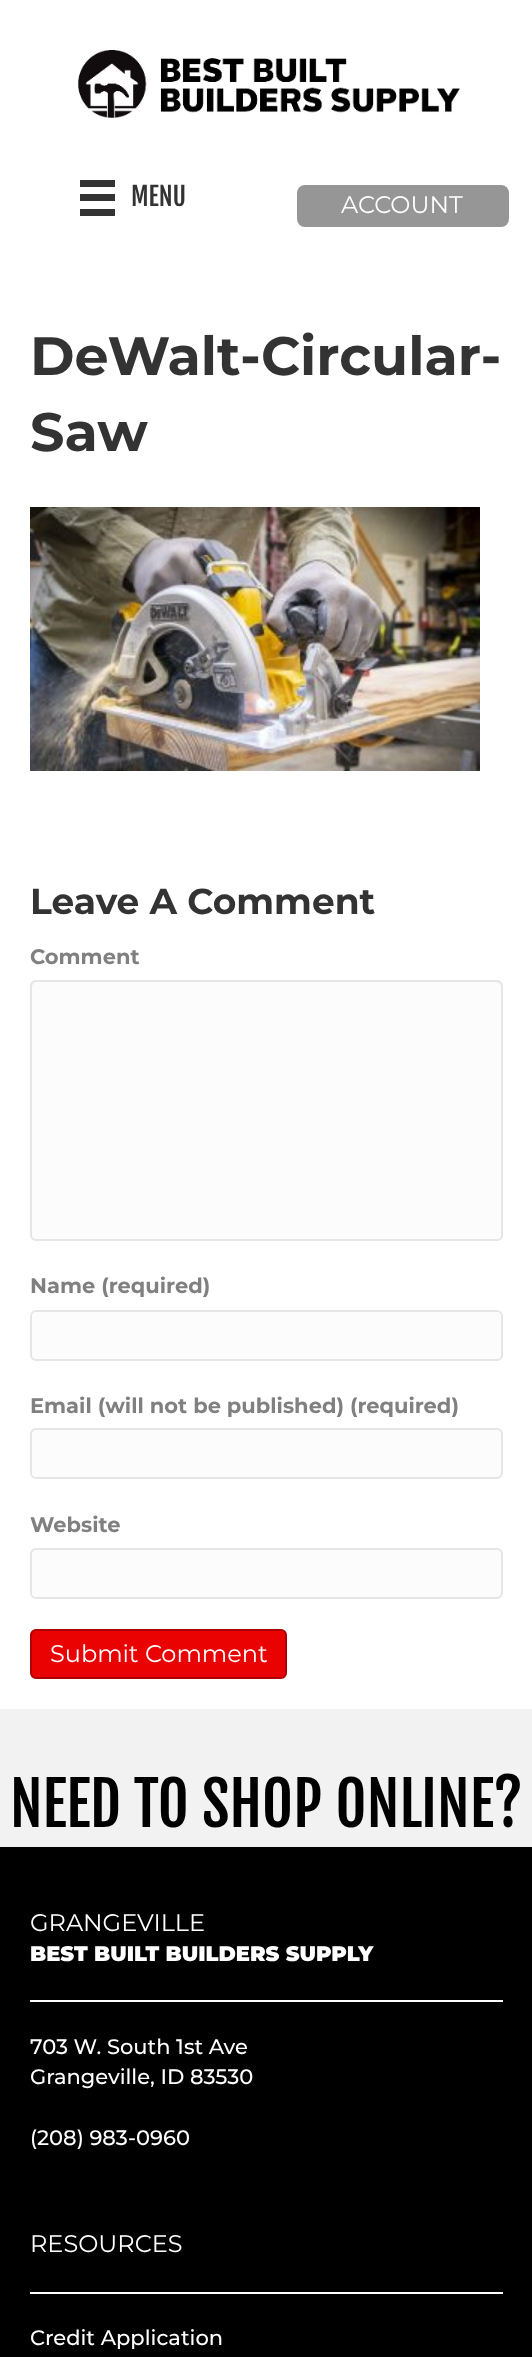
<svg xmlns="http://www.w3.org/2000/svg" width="532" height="2357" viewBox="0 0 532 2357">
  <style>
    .t1 { font: 25.5px Fjalla One; fill: #333334; }
    .t2 { font: 24px Montserrat; fill: #fff; }
    .t3 { font: bold 54px Montserrat; fill: #333334; }
    .t4 { font: bold 36px Montserrat; fill: #333334; }
    .t5 { font: bold 21px Montserrat; fill: #808080; }
    .t6 { font: 60px Fjalla One; fill: #000; }
    .t7 { font: 900 21px Montserrat; fill: #fff; }
    .t8 { font: 500 21px Montserrat; fill: #fff; }
  </style>
  <rect width="100%" height="100%" fill="#f2f2f2"/>
  <rect x="0" y="0" width="532" height="1709" fill="#fff"/>
  <image x="77" y="50" width="383" height="68" href="images/1.png"/>
  <rect x="80" y="180" width="35" height="7" fill="#333"/>
  <rect x="80" y="194" width="35" height="7" fill="#333"/>
  <rect x="80" y="209" width="35" height="7" fill="#333"/>
  <text x="131" y="206" class="t1">MENU</text>
  <rect x="297" y="185" width="212" height="42" rx="8" fill="#969696"/>
  <text x="341" y="213" class="t2">ACCOUNT</text>
  <text x="30" y="375" class="t3">DeWalt-Circular-</text>
  <text x="30" y="451" class="t3">Saw</text>
  <image x="30" y="507" width="450" height="264" href="images/2.png"/>
  <text x="30" y="914" class="t4">Leave A Comment</text>
  <text x="30" y="964" class="t5">Comment</text>
  <rect x="30" y="980" width="473" height="261" rx="6" fill="#fcfcfc"/>
  <path d="M36 982H496C499 982 501 985 501 987V986C501 983 499 981 496 981H37C34 981 32 983 32 986V987C32 985 34 982 36 982Z" fill="#e9e9e9"/>
  <rect x="31" y="981" width="471" height="259" rx="5" fill="none" stroke="#e6e6e6" stroke-width="2"/>
  <text x="30" y="1293" class="t5">Name (required)</text>
  <rect x="31" y="1311" width="471" height="49" rx="5" fill="#fcfcfc" stroke="#e6e6e6" stroke-width="2"/>
  <text x="30" y="1413" class="t5">Email (will not be published) (required)</text>
  <rect x="31" y="1429" width="471" height="49" rx="5" fill="#fcfcfc" stroke="#e6e6e6" stroke-width="2"/>
  <text x="30" y="1532" class="t5">Website</text>
  <rect x="31" y="1549" width="471" height="49" rx="5" fill="#fcfcfc" stroke="#e6e6e6" stroke-width="2"/>
  <rect x="31" y="1630" width="255" height="48" rx="5" fill="#ea0202" stroke="#ad0101" stroke-width="2"/>
  <text x="50" y="1662" class="t2">Submit Comment</text>
  <text x="10" y="1827" class="t6">NEED TO SHOP ONLINE?</text>
  <rect x="0" y="1847" width="532" height="510" fill="#000"/>
  <text x="30" y="1931" class="t2">GRANGEVILLE</text>
  <text x="30" y="1961" class="t7">BEST BUILT BUILDERS SUPPLY</text>
  <rect x="30" y="2000" width="473" height="2" fill="#fff"/>
  <text x="30" y="2054" class="t8">703 W. South 1st Ave</text>
  <text x="30" y="2084" class="t8">Grangeville, ID 83530</text>
  <text x="30" y="2145" class="t8">(208) 983-0960</text>
  <text x="30" y="2252" class="t2">RESOURCES</text>
  <rect x="30" y="2292" width="473" height="2" fill="#fff"/>
  <text x="30" y="2345" class="t8">Credit Application</text>
</svg>
